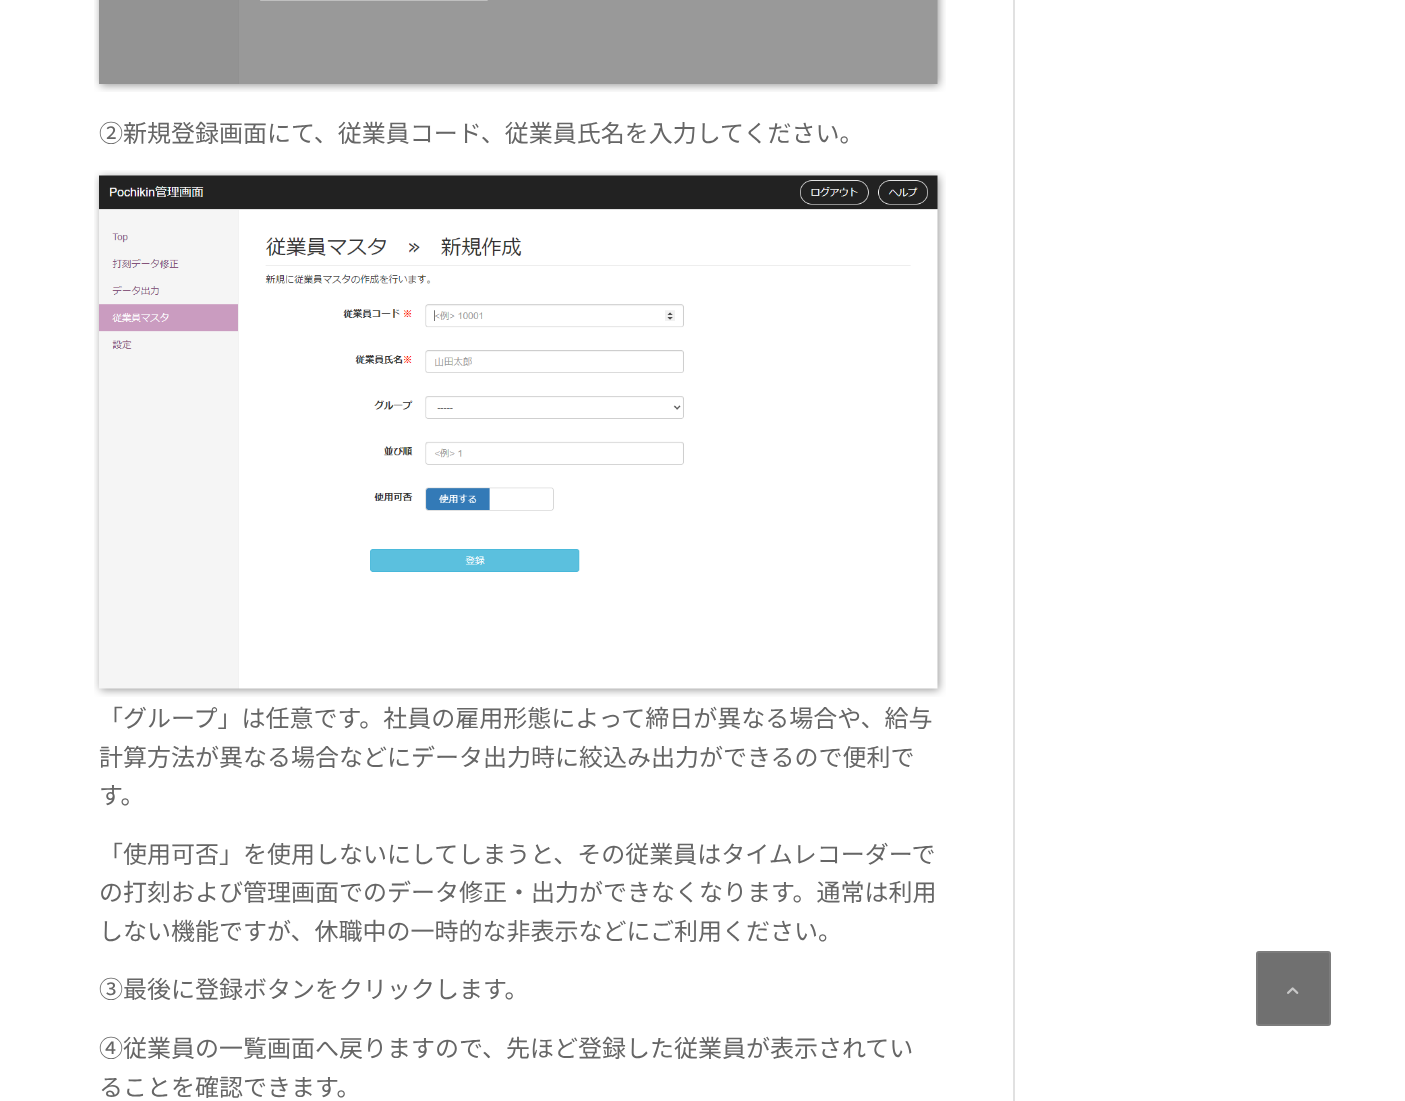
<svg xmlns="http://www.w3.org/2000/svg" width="1405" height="1101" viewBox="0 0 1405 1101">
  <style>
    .t1 { font: 24px Noto Sans JP; fill: #666; }
  </style>
  <rect width="100%" height="100%" fill="#fff"/>
  <rect x="1013" y="0" width="2" height="1101" fill="#e1e1e1"/>
  <image x="94" y="0" width="852" height="92" href="images/1.png"/>
  <text x="99" y="142" class="t1">②新規登録画面にて、従業員コード、従業員氏名を入力してください。</text>
  <image x="94" y="170" width="852" height="527" href="images/2.png"/>
  <text x="99" y="727" class="t1">「グループ」は任意です。社員の雇用形態によって締日が異なる場合や、給与</text>
  <text x="99" y="766" class="t1">計算方法が異なる場合などにデータ出力時に絞込み出力ができるので便利で</text>
  <text x="99" y="804" class="t1">す。</text>
  <text x="99" y="863" class="t1">「使用可否」を使用しないにしてしまうと、その従業員はタイムレコーダーで</text>
  <text x="99" y="901" class="t1">の打刻および管理画面でのデータ修正・出力ができなくなります。通常は利用</text>
  <text x="99" y="940" class="t1">しない機能ですが、休職中の一時的な非表示などにご利用ください。</text>
  <text x="99" y="998" class="t1">③最後に登録ボタンをクリックします。</text>
  <text x="99" y="1057" class="t1">④従業員の一覧画面へ戻りますので、先ほど登録した従業員が表示されてい</text>
  <text x="99" y="1096" class="t1">ることを確認できます。</text>
  <rect x="1257" y="952" width="73" height="73" rx="2" fill="#707070" stroke="#7c7c7c" stroke-width="2"/>
  <image x="1287" y="987" width="12" height="7" href="images/3.png"/>
</svg>
